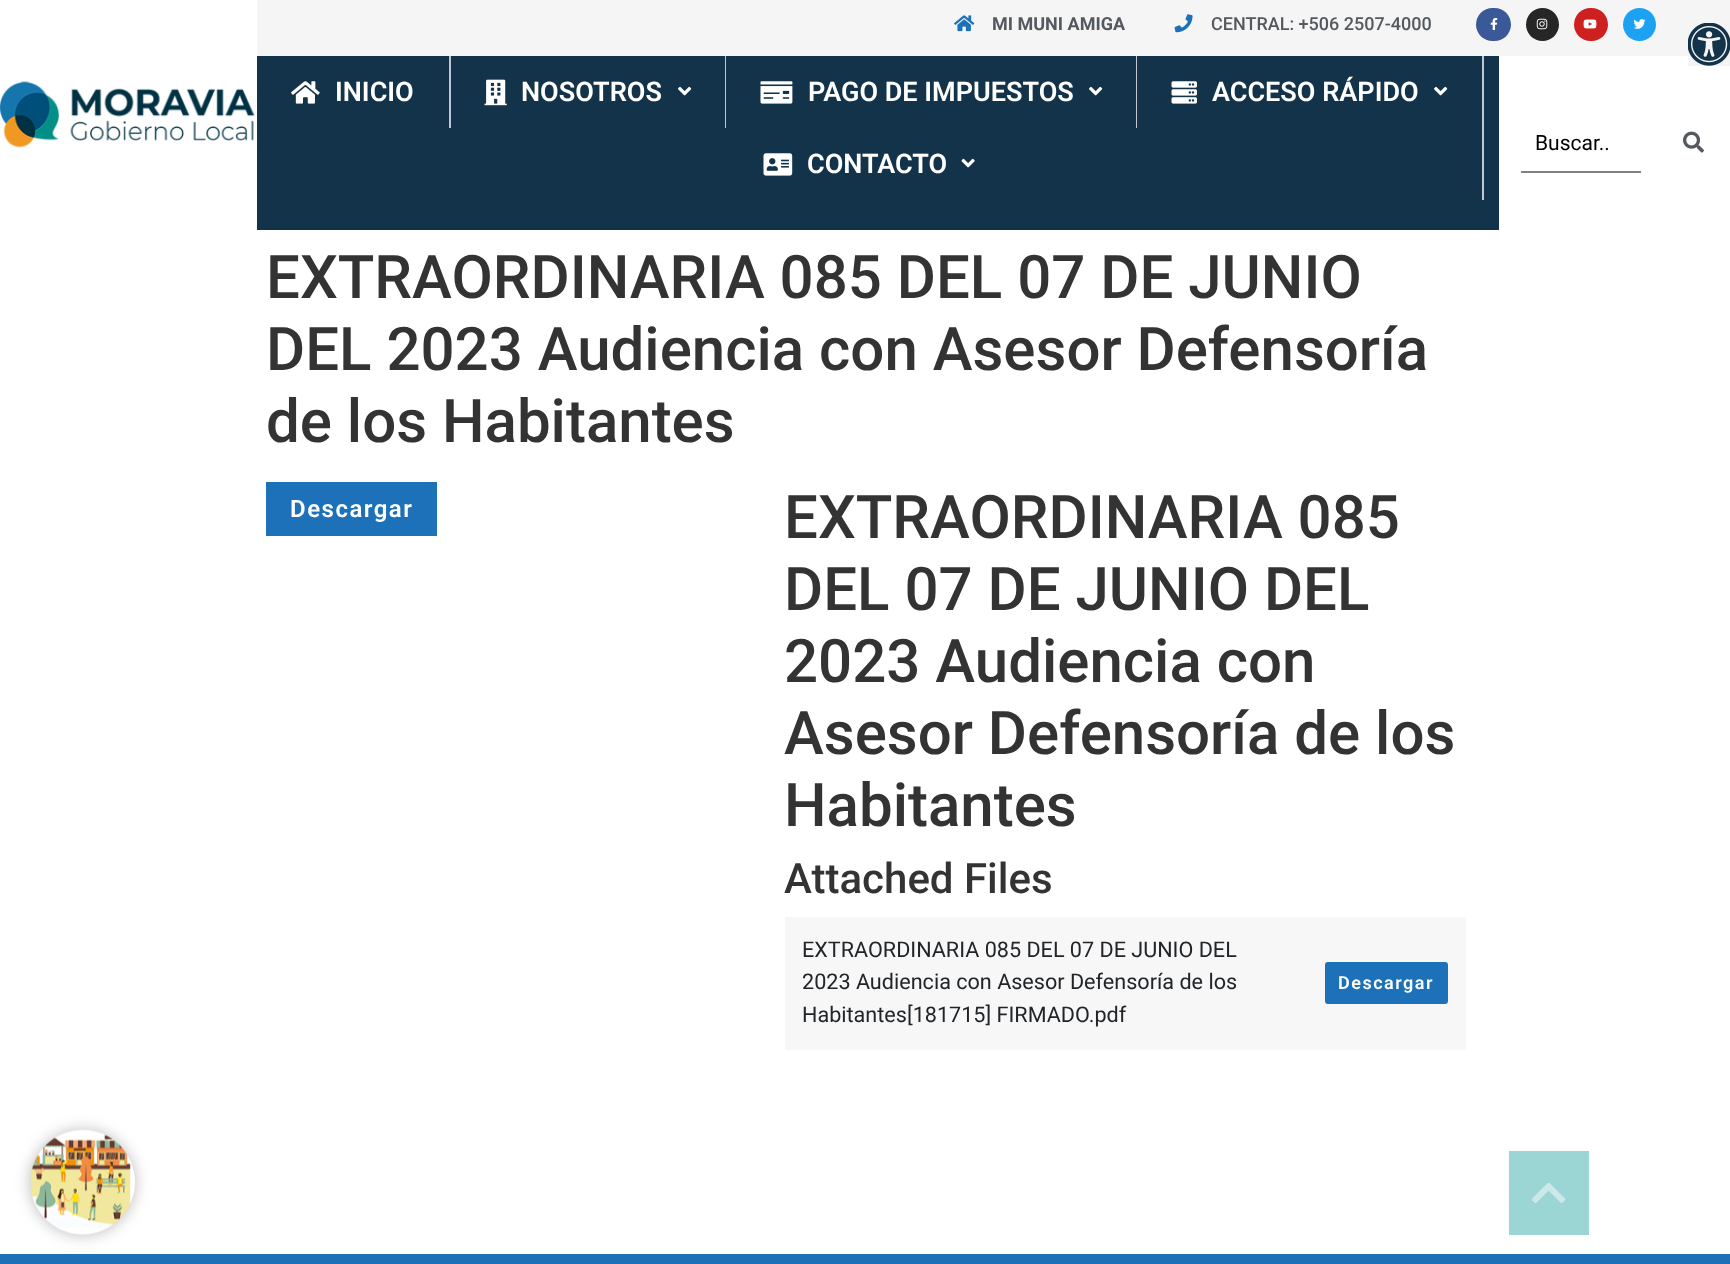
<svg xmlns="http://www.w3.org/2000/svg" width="1730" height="1264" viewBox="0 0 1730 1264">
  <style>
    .t1 { font: bold 18px Roboto; fill: #54595f; }
    .t2 { font: 500 18px Roboto; fill: #54595f; }
    .t3 { font: 600 27px Roboto; fill: #fff; }
    .t4 { font: 21px Roboto; fill: #000; }
    .t5 { font: 500 60px Roboto; fill: #333; }
    .t6 { font: 600 24px Roboto; letter-spacing: 1.5px; fill: #fff; }
    .t7 { font: 500 42px Roboto; fill: #333; }
    .t8 { font: 21.6px Roboto; fill: #212529; }
    .t9 { font: 600 18px Roboto; letter-spacing: 1.5px; fill: #fff; }
  </style>
  <defs>
    <linearGradient id="g1" gradientUnits="userSpaceOnUse" x1="866" y1="1254" x2="866" y2="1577"><stop offset="0" stop-color="#1d71b9"/><stop offset="1" stop-color="#0f416b"/></linearGradient>
  </defs>
  <rect width="100%" height="100%" fill="#fff"/>
  <image x="0" y="81" width="255" height="67" href="images/1.png"/>
  <rect x="257" y="0" width="1473" height="56" fill="#f5f5f5"/>
  <image x="954" y="15" width="21" height="17" href="images/2.png"/>
  <text x="992" y="30" class="t1">MI MUNI AMIGA</text>
  <image x="1174" y="14" width="19" height="19" href="images/3.png"/>
  <text x="1211" y="30" class="t2">CENTRAL: +506 2507-4000</text>
  <rect x="1476" y="8" width="35" height="33" rx="16.5" fill="#3b5998"/>
  <image x="1490" y="18" width="8" height="12" href="images/4.png"/>
  <circle cx="1542.5" cy="24.5" r="16.5" fill="#262626"/>
  <image x="1536" y="18" width="12" height="12" href="images/5.png"/>
  <rect x="1574" y="8" width="34" height="33" rx="16.5" fill="#cd201f"/>
  <image x="1583" y="19" width="14" height="10" href="images/6.png"/>
  <circle cx="1639.5" cy="24.5" r="16.5" fill="#1da1f2"/>
  <image x="1633" y="19" width="13" height="10" href="images/7.png"/>
  <rect x="257" y="56" width="1242" height="174" fill="#13334a"/>
  <rect x="449" y="56" width="2" height="72" fill="#c2c6d2"/>
  <image x="291" y="81" width="29" height="23" href="images/8.png"/>
  <text x="335" y="101" class="t3">INICIO</text>
  <rect x="725" y="56" width="1" height="72" fill="#c2c6d2"/>
  <image x="484" y="79" width="23" height="27" href="images/9.png"/>
  <text x="521" y="101" class="t3">NOSOTROS</text>
  <image x="678" y="86" width="14" height="10" href="images/10.png"/>
  <rect x="1136" y="56" width="1" height="72" fill="#c2c6d2"/>
  <image x="760" y="81" width="33" height="23" href="images/11.png"/>
  <text x="808" y="101" class="t3">PAGO DE IMPUESTOS</text>
  <image x="1089" y="86" width="14" height="10" href="images/10.png"/>
  <rect x="1482" y="56" width="2" height="144" fill="#c2c6d2"/>
  <image x="1171" y="81" width="26" height="23" href="images/12.png"/>
  <text x="1212" y="101" class="t3">ACCESO RÁPIDO</text>
  <image x="1434" y="86" width="14" height="10" href="images/10.png"/>
  <image x="763" y="153" width="30" height="23" href="images/13.png"/>
  <text x="807" y="173" class="t3">CONTACTO</text>
  <image x="961" y="158" width="14" height="10" href="images/14.png"/>
  <rect x="1521" y="171" width="120" height="2" fill="#818181"/>
  <text x="1535" y="150" class="t4">Buscar..</text>
  <image x="1683" y="131" width="21" height="22" href="images/15.png"/>
  <rect x="1688" y="56" width="42" height="10" fill="#f4f4f4"/>
  <image x="1688" y="23" width="42" height="43" href="images/16.png"/>
  <text x="266" y="298" class="t5">EXTRAORDINARIA 085 DEL 07 DE JUNIO</text>
  <text x="266" y="370" class="t5">DEL 2023 Audiencia con Asesor Defensoría</text>
  <text x="266" y="442" class="t5">de los Habitantes</text>
  <rect x="266" y="482" width="171" height="54" fill="#1d71b9"/>
  <text x="290" y="517" class="t6">Descargar</text>
  <text x="784" y="538" class="t5">EXTRAORDINARIA 085</text>
  <text x="784" y="610" class="t5">DEL 07 DE JUNIO DEL</text>
  <text x="784" y="682" class="t5">2023 Audiencia con</text>
  <text x="784" y="754" class="t5">Asesor Defensoría de los</text>
  <text x="784" y="826" class="t5">Habitantes</text>
  <text x="784" y="893" class="t7">Attached Files</text>
  <rect x="785" y="917" width="681" height="133" fill="#f7f7f7"/>
  <text x="802" y="957" class="t8">EXTRAORDINARIA 085 DEL 07 DE JUNIO DEL</text>
  <text x="802" y="989" class="t8">2023 Audiencia con Asesor Defensoría de los</text>
  <text x="802" y="1022" class="t8">Habitantes[181715] FIRMADO.pdf</text>
  <rect x="1326" y="963" width="121" height="40" rx="2" fill="#1d71b9" stroke="#1d71b9" stroke-width="2"/>
  <text x="1338" y="989" class="t9">Descargar</text>
  <rect x="0" y="1254" width="1730" height="10" fill="url(#g1)"/>
  <rect x="30" y="1130" width="105" height="105" rx="52.5" fill="#00000042" filter="blur(7.5px)"/>
  <image x="30" y="1129" width="105" height="106" href="images/17.png"/>
  <rect x="1509" y="1151" width="80" height="84" fill="#9bd5d4"/>
  <image x="1532" y="1182" width="34" height="21" href="images/18.png"/>
</svg>
